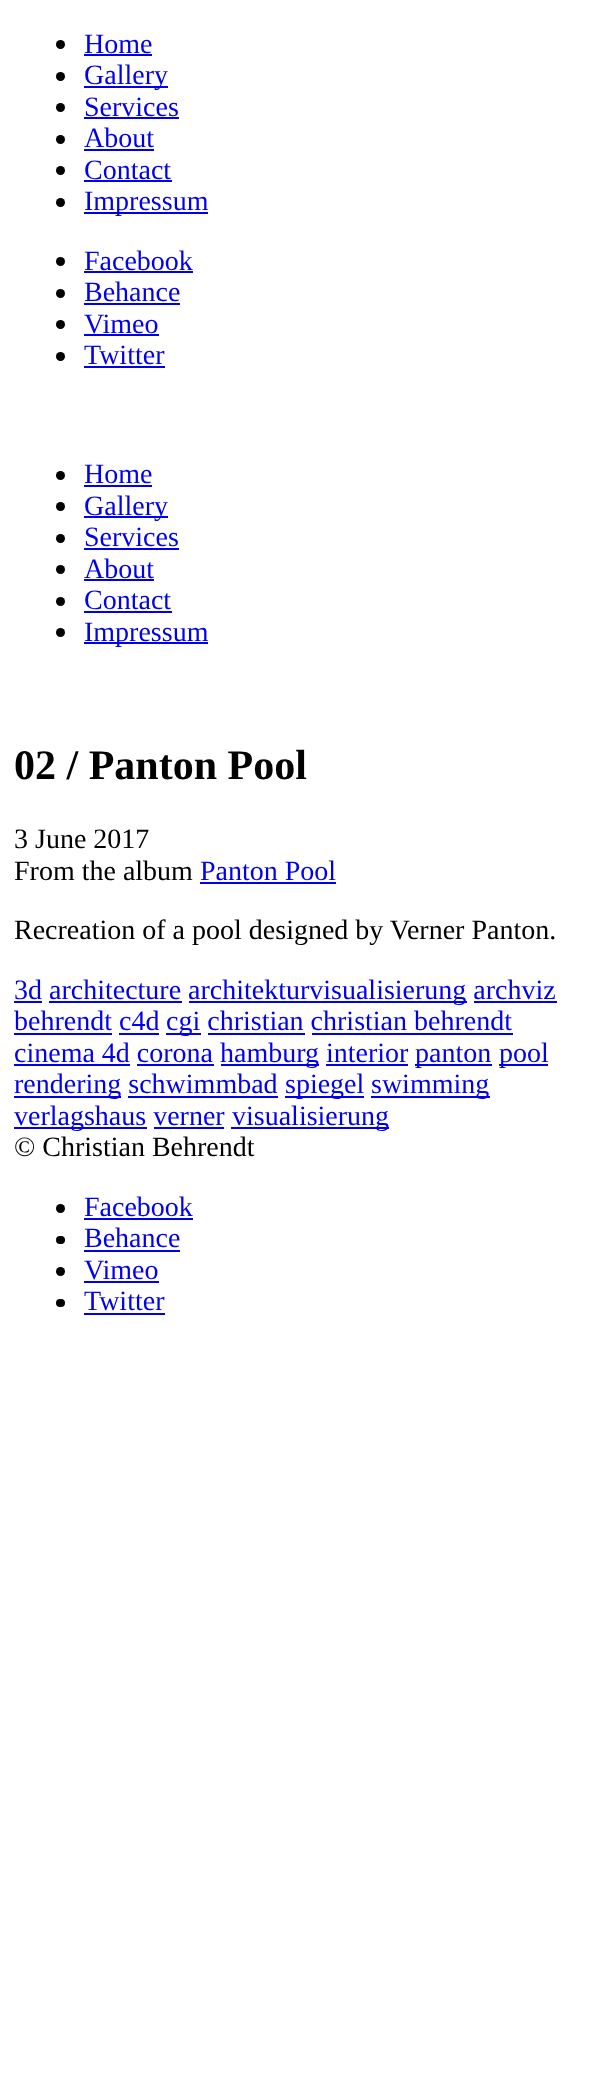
<svg xmlns="http://www.w3.org/2000/svg" width="595" height="2089" viewBox="0 0 595 2089">
  <style>
    .t1 { font: 28px Liberation Serif; fill: #00e; }
    .t2 { font: bold 42px Liberation Serif; fill: #000; }
    .t3 { font: 28px Liberation Serif; fill: #000; }
  </style>
  <rect width="100%" height="100%" fill="#fff"/>
  <circle cx="60.5" cy="44.5" r="4.5" fill="#000"/>
  <text x="84" y="53" class="t1">Home</text>
  <rect x="84" y="54" width="68" height="2" fill="#00e"/>
  <circle cx="60.5" cy="76.5" r="4.5" fill="#000"/>
  <rect x="84" y="86" width="84" height="2" fill="#00e"/>
  <text x="84" y="84" class="t1">Gallery</text>
  <circle cx="60.5" cy="107.5" r="4.5" fill="#000"/>
  <text x="84" y="116" class="t1">Services</text>
  <rect x="84" y="117" width="95" height="2" fill="#00e"/>
  <circle cx="60.5" cy="139.5" r="4.5" fill="#000"/>
  <text x="84" y="147" class="t1">About</text>
  <rect x="84" y="149" width="70" height="2" fill="#00e"/>
  <circle cx="60.5" cy="170.5" r="4.5" fill="#000"/>
  <text x="84" y="179" class="t1">Contact</text>
  <rect x="84" y="180" width="88" height="2" fill="#00e"/>
  <circle cx="60.5" cy="202.5" r="4.5" fill="#000"/>
  <rect x="84" y="212" width="124" height="2" fill="#00e"/>
  <text x="84" y="210" class="t1">Impressum</text>
  <circle cx="60.5" cy="261.5" r="4.5" fill="#000"/>
  <text x="84" y="270" class="t1">Facebook</text>
  <rect x="84" y="271" width="109" height="2" fill="#00e"/>
  <circle cx="60.5" cy="293.5" r="4.5" fill="#000"/>
  <text x="84" y="301" class="t1">Behance</text>
  <rect x="84" y="303" width="96" height="2" fill="#00e"/>
  <circle cx="60.5" cy="324.5" r="4.5" fill="#000"/>
  <text x="84" y="333" class="t1">Vimeo</text>
  <rect x="84" y="334" width="75" height="2" fill="#00e"/>
  <circle cx="60.5" cy="356.5" r="4.5" fill="#000"/>
  <text x="84" y="364" class="t1">Twitter</text>
  <rect x="84" y="366" width="81" height="2" fill="#00e"/>
  <circle cx="60.5" cy="475.5" r="4.5" fill="#000"/>
  <text x="84" y="483" class="t1">Home</text>
  <rect x="84" y="485" width="68" height="2" fill="#00e"/>
  <circle cx="60.5" cy="506.5" r="4.5" fill="#000"/>
  <rect x="84" y="516" width="84" height="2" fill="#00e"/>
  <text x="84" y="515" class="t1">Gallery</text>
  <circle cx="60.5" cy="538.5" r="4.5" fill="#000"/>
  <text x="84" y="546" class="t1">Services</text>
  <rect x="84" y="548" width="95" height="2" fill="#00e"/>
  <circle cx="60.5" cy="569.5" r="4.5" fill="#000"/>
  <text x="84" y="578" class="t1">About</text>
  <rect x="84" y="579" width="70" height="2" fill="#00e"/>
  <circle cx="60.5" cy="601.5" r="4.5" fill="#000"/>
  <text x="84" y="609" class="t1">Contact</text>
  <rect x="84" y="611" width="88" height="2" fill="#00e"/>
  <circle cx="60.5" cy="632.5" r="4.5" fill="#000"/>
  <rect x="84" y="642" width="124" height="2" fill="#00e"/>
  <text x="84" y="641" class="t1">Impressum</text>
  <text x="14" y="779" class="t2">02 / Panton Pool</text>
  <text x="14" y="848" class="t3">3 June 2017</text>
  <text x="14" y="880" class="t3">From the album</text>
  <text x="200" y="880" class="t1">Panton Pool</text>
  <rect x="200" y="882" width="136" height="2" fill="#00e"/>
  <text x="14" y="939" class="t3">Recreation of a pool designed by Verner Panton.</text>
  <text x="14" y="999" class="t1">3d architecture</text>
  <rect x="14" y="1001" width="28" height="2" fill="#00e"/>
  <rect x="189" y="1001" width="278" height="2" fill="#00e"/>
  <text x="188" y="999" class="t1">architekturvisualisierung archviz</text>
  <rect x="49" y="1001" width="133" height="2" fill="#00e"/>
  <rect x="474" y="1001" width="83" height="2" fill="#00e"/>
  <text x="14" y="1030" class="t1">behrendt c4d</text>
  <rect x="14" y="1033" width="98" height="2" fill="#00e"/>
  <rect x="166" y="1033" width="35" height="2" fill="#00e"/>
  <text x="166" y="1030" class="t1">cgi christian christian behrendt</text>
  <rect x="119" y="1033" width="40" height="2" fill="#00e"/>
  <rect x="208" y="1033" width="97" height="2" fill="#00e"/>
  <rect x="312" y="1033" width="201" height="2" fill="#00e"/>
  <text x="14" y="1062" class="t1">cinema 4d corona</text>
  <rect x="14" y="1064" width="116" height="2" fill="#00e"/>
  <rect x="221" y="1064" width="98" height="2" fill="#00e"/>
  <text x="220" y="1062" class="t1">hamburg interior</text>
  <rect x="415" y="1064" width="77" height="2" fill="#00e"/>
  <text x="415" y="1062" class="t1">panton</text>
  <rect x="499" y="1064" width="49" height="2" fill="#00e"/>
  <text x="499" y="1062" class="t1">pool</text>
  <rect x="137" y="1064" width="77" height="2" fill="#00e"/>
  <rect x="326" y="1064" width="82" height="2" fill="#00e"/>
  <rect x="14" y="1096" width="107" height="2" fill="#00e"/>
  <text x="14" y="1093" class="t1">rendering schwimmbad</text>
  <rect x="285" y="1096" width="79" height="2" fill="#00e"/>
  <text x="285" y="1093" class="t1">spiegel</text>
  <rect x="371" y="1096" width="119" height="2" fill="#00e"/>
  <text x="371" y="1093" class="t1">swimming</text>
  <rect x="128" y="1096" width="150" height="2" fill="#00e"/>
  <rect x="14" y="1127" width="133" height="2" fill="#00e"/>
  <text x="14" y="1125" class="t1">verlagshaus verner</text>
  <rect x="231" y="1127" width="158" height="2" fill="#00e"/>
  <text x="232" y="1125" class="t1">visualisierung</text>
  <rect x="154" y="1127" width="70" height="2" fill="#00e"/>
  <text x="14" y="1156" class="t3">© Christian Behrendt</text>
  <circle cx="60.5" cy="1208.5" r="4.5" fill="#000"/>
  <text x="84" y="1216" class="t1">Facebook</text>
  <rect x="84" y="1218" width="109" height="2" fill="#00e"/>
  <rect x="56" y="1236" width="9" height="8" rx="4" fill="#000"/>
  <text x="84" y="1247" class="t1">Behance</text>
  <rect x="84" y="1250" width="96" height="2" fill="#00e"/>
  <circle cx="60.5" cy="1271.5" r="4.5" fill="#000"/>
  <text x="84" y="1279" class="t1">Vimeo</text>
  <rect x="84" y="1281" width="75" height="2" fill="#00e"/>
  <rect x="56" y="1299" width="9" height="8" rx="4" fill="#000"/>
  <text x="84" y="1310" class="t1">Twitter</text>
  <rect x="84" y="1313" width="81" height="2" fill="#00e"/>
</svg>
